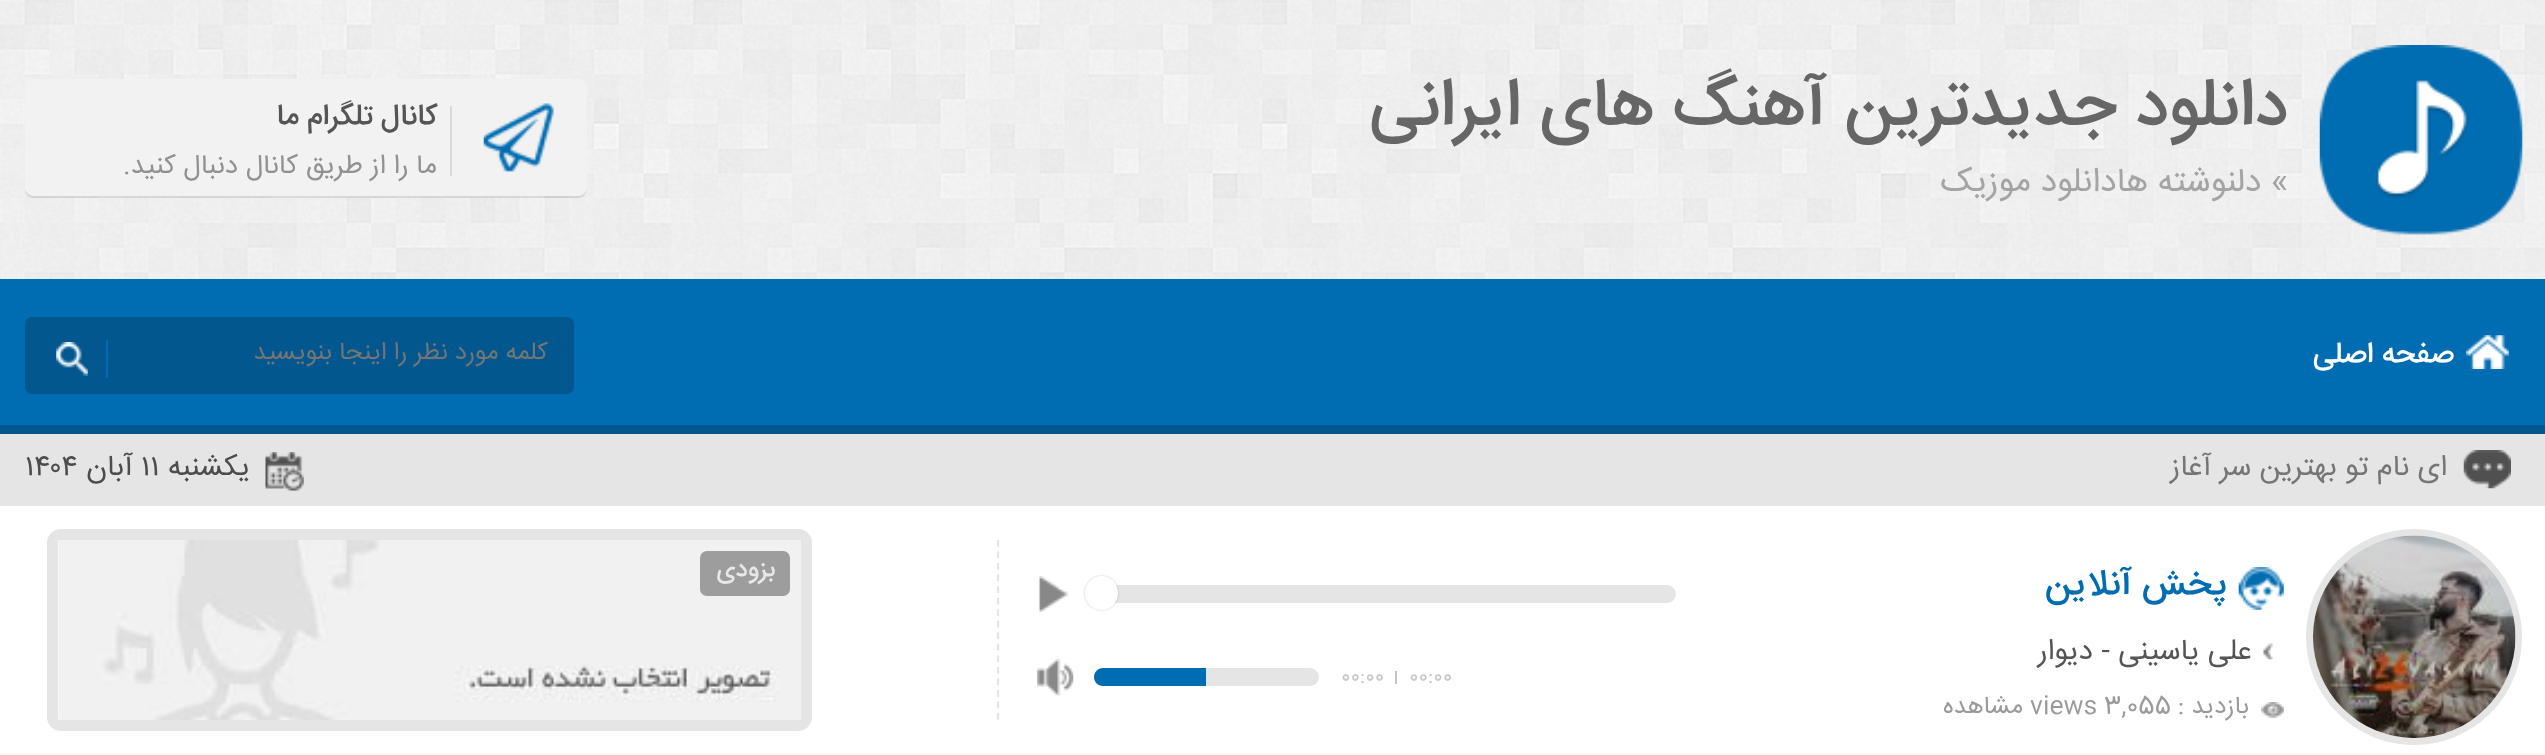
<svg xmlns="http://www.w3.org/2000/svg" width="2545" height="755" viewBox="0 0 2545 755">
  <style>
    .t1 { font: 500 67.5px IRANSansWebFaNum; direction: rtl; fill: #666; }
    .t2 { font: 33.75px IRANSansWebFaNum; direction: rtl; fill: #a4a4a4; }
    .t3 { font: 500 29.25px IRANSansWebFaNum; direction: rtl; fill: #555; }
    .t4 { font: 27px IRANSansWebFaNum; direction: rtl; fill: #919191; }
    .t5 { font: 500 29.25px IRANSansWebFaNum; direction: rtl; fill: #fff; }
    .t6 { font: 24.75px IRANSansWebFaNum; direction: rtl; fill: #757575; }
    .t7 { font: 29.25px IRANSansWebFaNum; direction: rtl; fill: #757575; }
    .t8 { font: 29.25px IRANSansWebFaNum; direction: rtl; fill: #4c4c4c; }
    .t9 { font: 29.25px IRANSansWebFaNum; fill: #4c4c4c; }
    .t10 { font: 500 36px IRANSansWebFaNum; direction: rtl; fill: #006cb1; }
    .t11 { font: 29.25px IRANSansWebFaNum; direction: rtl; fill: #555; }
    .t12 { font: 24.75px IRANSansWebFaNum; direction: rtl; fill: #9a9a9a; }
    .t13 { font: 24.75px IRANSansWebFaNum; fill: #9a9a9a; }
    .t14 { font: 20px IRANSansWebFaNum; fill: #c5c5c5; }
    .t15 { font: 500 24.75px IRANSansWebFaNum; direction: rtl; fill: #e8e8e8; }
  </style>
  <rect width="100%" height="100%" fill="#fff"/>
  <image x="0" y="0" width="2545" height="279" href="images/1.png"/>
  <image x="2319" y="45" width="204" height="190" href="images/2.png"/>
  <text x="2288" y="124" class="t1">دانلود جدیدترین آهنگ های ایرانی</text>
  <text x="2288" y="191" class="t2">» دلنوشته هادانلود موزیک</text>
  <path d="M25 189C25 194 29 198 34 198H578C583 198 587 194 587 189C586 193 582 196 578 196H34C30 196 26 193 25 189Z" fill="#0000001a"/>
  <rect x="25" y="79" width="562" height="117" rx="9" fill="#f2f2f2"/>
  <image x="483" y="103" width="71" height="69" href="images/3.png"/>
  <rect x="450" y="106" width="2" height="70" fill="#d9d9d9"/>
  <text x="437" y="124" class="t3">کانال تلگرام ما</text>
  <text x="437" y="173" class="t4">ما را از طریق کانال دنبال کنید.</text>
  <rect x="0" y="279" width="2545" height="146" fill="#006cb1"/>
  <rect x="0" y="425" width="2545" height="9" fill="#01578e"/>
  <image x="2466" y="335" width="43" height="34" href="images/4.png"/>
  <text x="2454" y="362" class="t5">صفحه اصلی</text>
  <rect x="25" y="317" width="549" height="77" rx="7" fill="#01578e"/>
  <text x="548" y="359" class="t6">كلمه مورد نظر را اينجا بنويسيد</text>
  <rect x="106" y="340" width="2" height="38" fill="#006cb1"/>
  <image x="56" y="342" width="32" height="34" href="images/5.png"/>
  <rect x="0" y="434" width="2545" height="72" fill="#e5e5e5"/>
  <image x="2463" y="450" width="48" height="39" href="images/6.png"/>
  <text x="2447" y="475" class="t7">ای نام تو بهترین سر آغاز</text>
  <image x="265" y="452" width="39" height="39" href="images/7.png"/>
  <text x="250" y="475" class="t8">یکشنبه</text>
  <text x="141" y="475" class="t9">۱۱</text>
  <text x="133" y="475" class="t8">آبان</text>
  <text x="25" y="475" class="t9">۱۴۰۴</text>
  <circle cx="2414" cy="637" r="104.5" fill="none" stroke="#e5e5e5" stroke-width="7"/>
  <image x="2313" y="535" width="203" height="203" href="images/8.png"/>
  <image x="2238" y="567" width="46" height="43" href="images/9.png"/>
  <text x="2227" y="594" class="t10">پخش آنلاین</text>
  <image x="2263" y="643" width="10" height="17" href="images/10.png"/>
  <text x="2252" y="659" class="t11">علی یاسینی - دیوار</text>
  <image x="2261" y="702" width="23" height="16" href="images/11.png"/>
  <text x="2249" y="713" class="t12">بازدید :</text>
  <text x="2030" y="713" class="t13">views 3,055</text>
  <text x="2023" y="713" class="t12">مشاهده</text>
  <rect x="1096" y="585" width="580" height="18" rx="9" fill="#e5e5e5"/>
  <rect x="1085" y="576" width="33" height="34" rx="16.5" fill="#00000033" filter="blur(1px)"/>
  <rect x="1085" y="576" width="33" height="34" rx="16.5" fill="#fff"/>
  <image x="1039" y="576" width="30" height="36" href="images/12.png"/>
  <text x="1409" y="682" class="t14">00:00</text>
  <rect x="1395" y="671" width="2" height="13" fill="#c5c5c5"/>
  <text x="1341" y="682" class="t14">00:00</text>
  <rect x="1094" y="668" width="225" height="18" rx="9" fill="#e5e5e5"/>
  <path d="M1103 668H1206V686H1103C1098 686 1094 682 1094 677C1094 672 1098 668 1103 668Z" fill="#006cb1"/>
  <image x="1037" y="659" width="37" height="37" href="images/13.png"/>
  <path d="M998 540V720" fill="none" stroke="#e5e5e5" stroke-width="2.2" stroke-dasharray="6.75 4.79"/>
  <rect x="52.5" y="534.5" width="754" height="191" rx="8.5" fill="none" stroke="#e5e5e5" stroke-width="11"/>
  <image x="58" y="540" width="743" height="180" href="images/14.png"/>
  <rect x="700" y="551" width="90" height="45" rx="7" fill="#9d9d9d"/>
  <text x="775" y="576" class="t15">بزودی</text>
  <rect x="0" y="754" width="2545" height="1" fill="#f2f2f2"/>
</svg>
